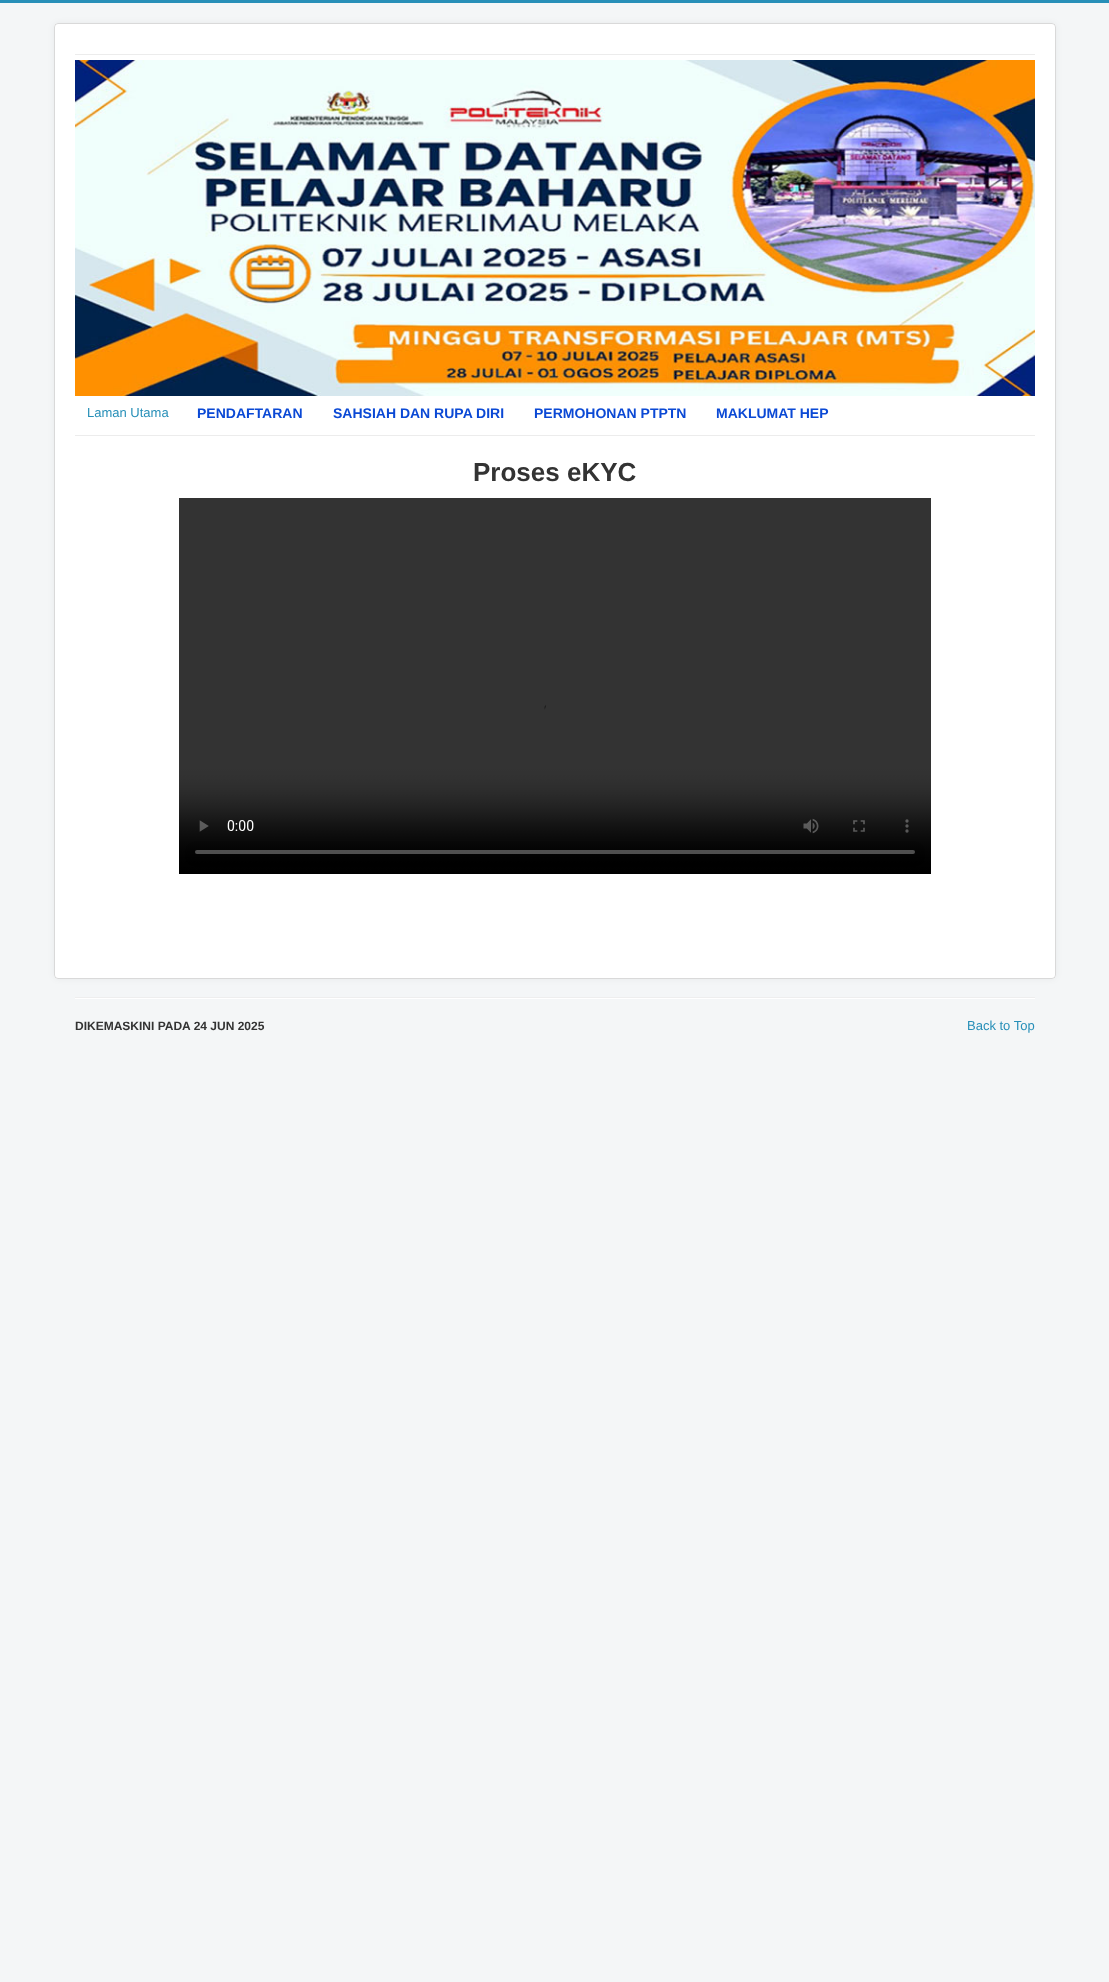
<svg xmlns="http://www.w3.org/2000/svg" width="1109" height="1982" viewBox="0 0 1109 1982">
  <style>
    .t1 { font: 13px Liberation Sans; fill: #278fb8; }
    .t2 { font: bold 14px Liberation Sans; fill: #0b49d5; }
    .t3 { font: bold 26px Liberation Sans; fill: #333; }
    .t4 { font: bold 12px Liberation Sans; fill: #333; }
  </style>
  <rect width="100%" height="100%" fill="#f4f6f7"/>
  <rect x="0" y="0" width="1109" height="3" fill="#278fb8"/>
  <rect x="54" y="23" width="1002" height="956" rx="4" fill="#0000000d" filter="blur(3px)"/>
  <rect x="54" y="23" width="1002" height="956" rx="4" fill="#fff"/>
  <rect x="54.5" y="23.5" width="1001" height="955" rx="3.5" fill="none" stroke="#00000026"/>
  <rect x="75" y="54" width="960" height="1" fill="#ececec"/>
  <rect x="75" y="435" width="960" height="1" fill="#ececec"/>
  <image x="75" y="60" width="960" height="336" href="images/1.png"/>
  <text x="87" y="417" class="t1">Laman Utama</text>
  <text x="197" y="418" class="t2">PENDAFTARAN</text>
  <text x="333" y="418" class="t2">SAHSIAH DAN RUPA DIRI</text>
  <text x="534" y="418" class="t2">PERMOHONAN PTPTN</text>
  <text x="716" y="418" class="t2">MAKLUMAT HEP</text>
  <text x="473" y="481" class="t3">Proses eKYC</text>
  <image x="179" y="498" width="752" height="376" href="images/2.png"/>
  <rect x="75" y="997" width="960" height="1" fill="#eee"/>
  <rect x="75" y="998" width="960" height="1" fill="#fff"/>
  <text x="75" y="1030" class="t4">DIKEMASKINI PADA 24 JUN 2025</text>
  <text x="967" y="1030" class="t1">Back to Top</text>
</svg>
